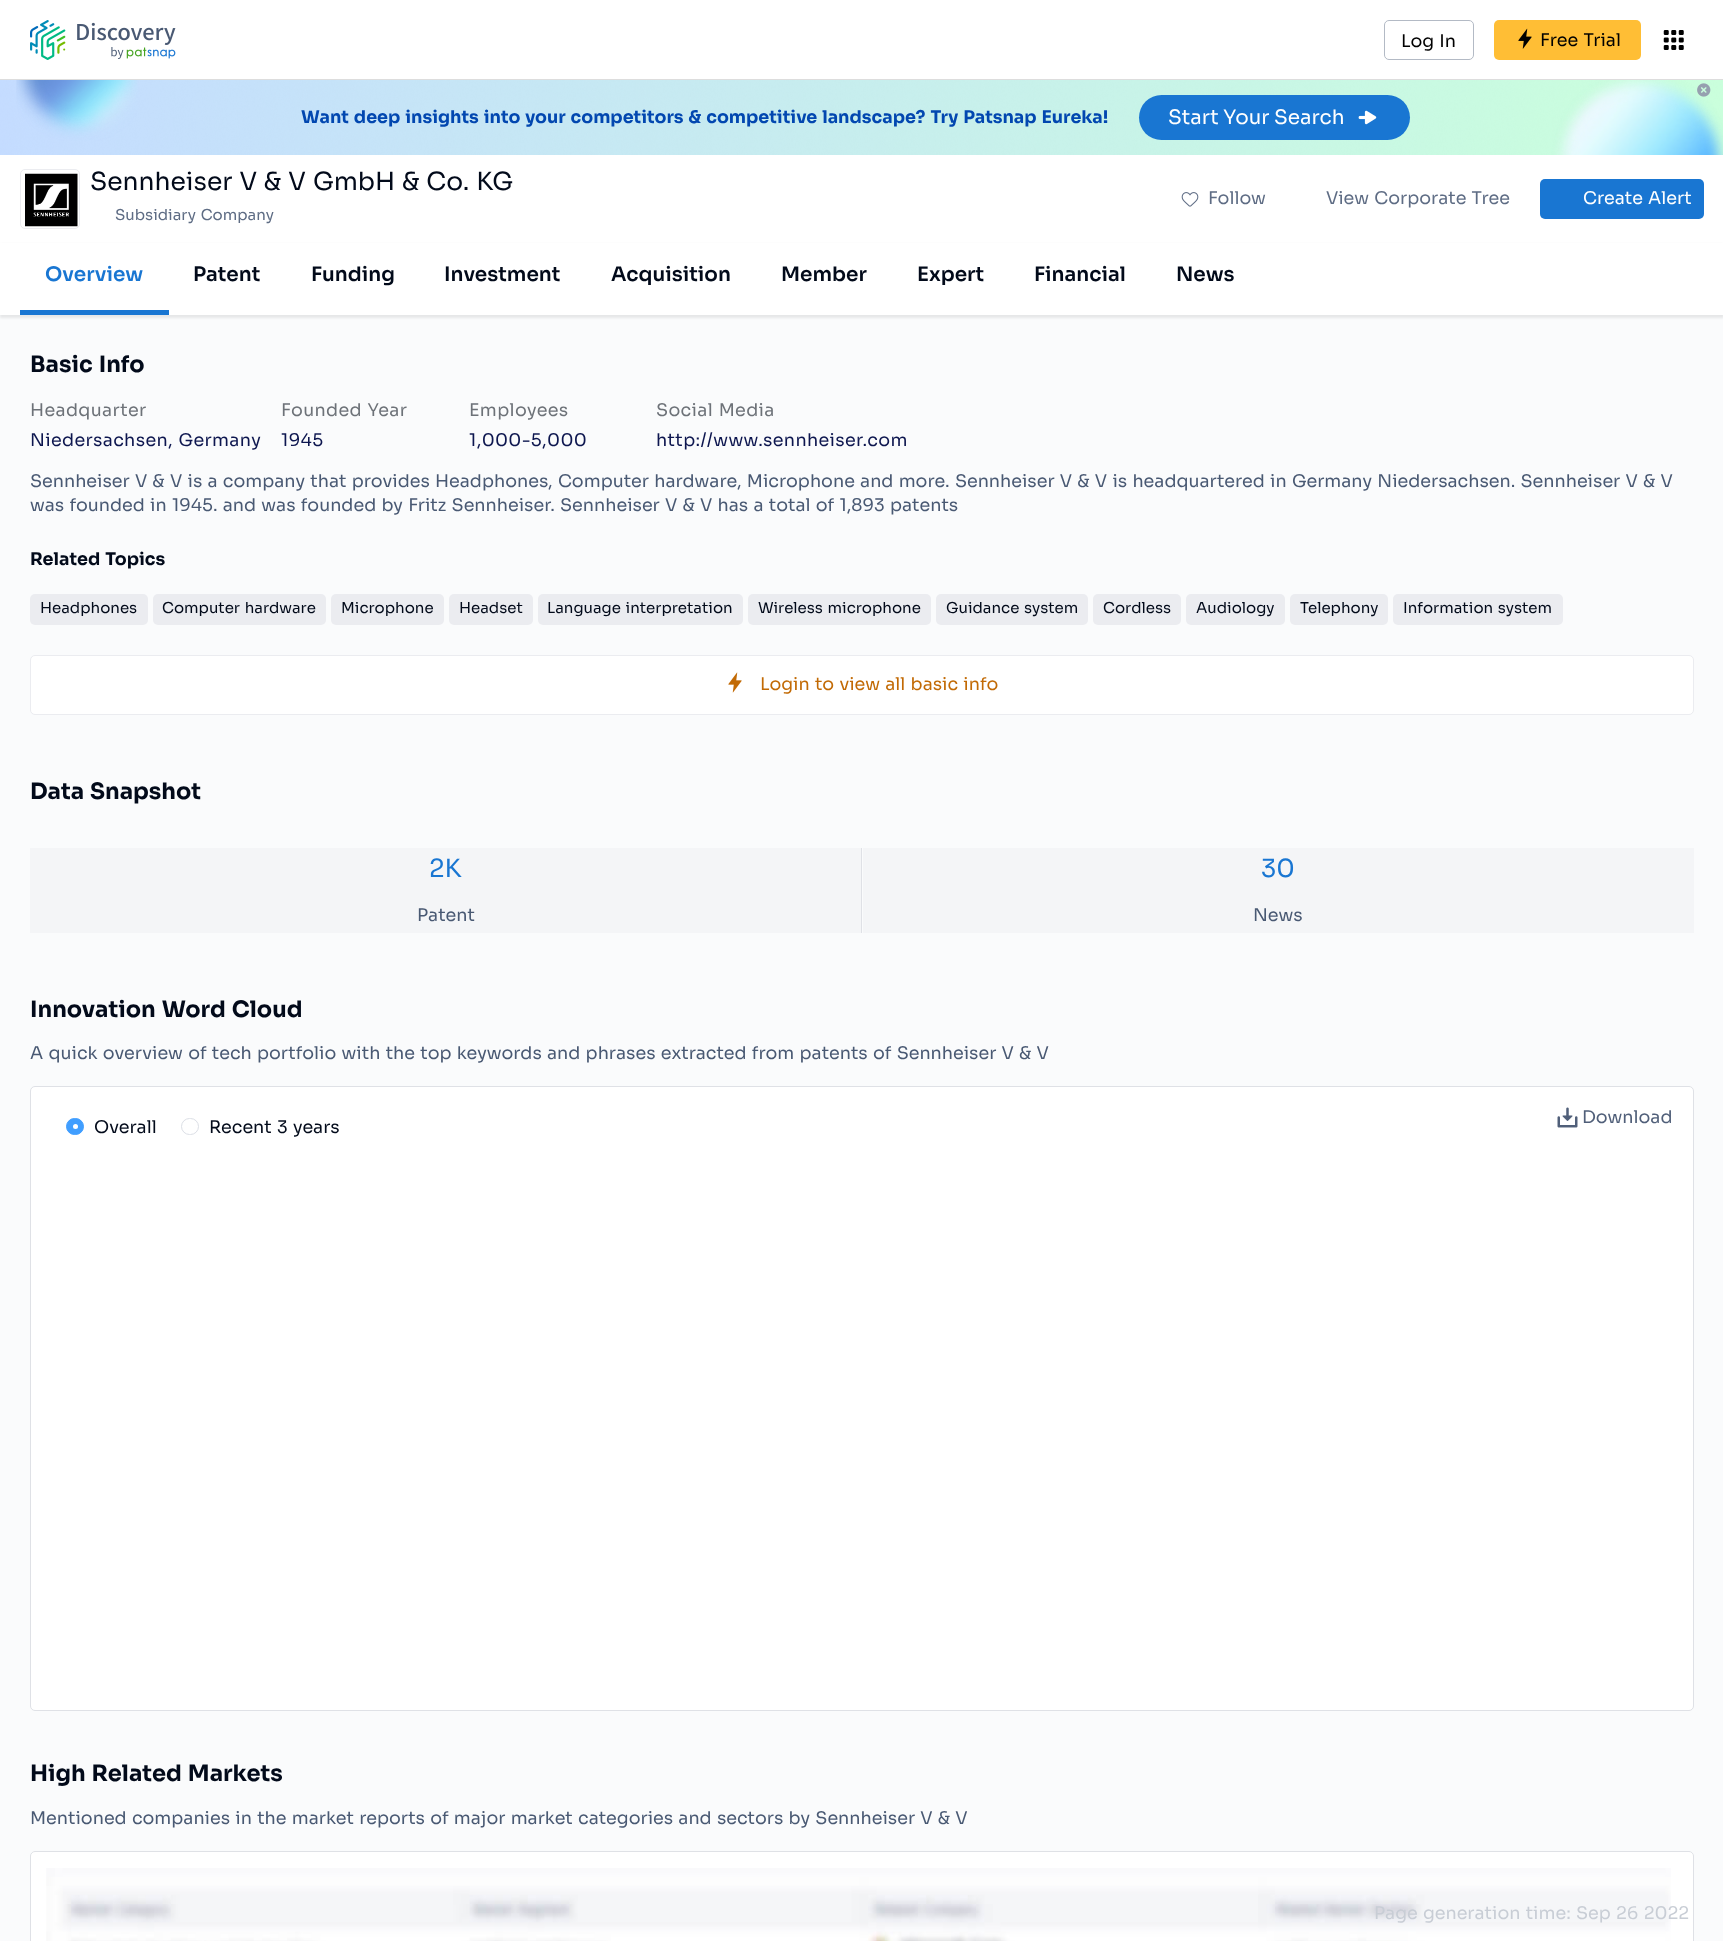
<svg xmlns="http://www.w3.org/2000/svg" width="1723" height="1941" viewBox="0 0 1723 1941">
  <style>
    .t1 { font: 17.5px Sora; fill: #000; }
    .t2 { font: bold 17.5px Sora; fill: #0247b0; }
    .t3 { font: 20px Sora; fill: #fff; }
    .t4 { font: 25px Sora; fill: #020a1a; }
    .t5 { font: 15px Sora; fill: #5e6c84; }
    .t6 { font: 17.5px Sora; fill: #5e6c84; }
    .t7 { font: 17.5px Sora; fill: #fff; }
    .t8 { font: 600 20px Sora; fill: #1976d2; }
    .t9 { font: 600 20px Sora; fill: #020a1a; }
    .t10 { font: bold 22.5px Sora; fill: #020a1a; }
    .t11 { font: 17.5px Sora; letter-spacing: 0.35px; fill: #6d7278; }
    .t12 { font: 17.5px Sora; letter-spacing: 0.35px; fill: #0d164f; }
    .t13 { font: 17.5px Sora; fill: #495973; }
    .t14 { font: bold 17.5px Sora; fill: #020a1a; }
    .t15 { font: 15px Sora; fill: #020a1a; }
    .t16 { font: 17.5px Sora; fill: #c26a05; }
    .t17 { font: 25px Sora; fill: #1976d2; }
    .t18 { font: 17.5px Sora; fill: #505f79; }
    .t19 { font: 17.5px Sora; fill: #020a1a; }
    .t20 { font: 17.5px Sora; fill: #c8cdd5; }
  </style>
  <rect width="100%" height="100%" fill="#fff"/>
  <rect x="0" y="79" width="1723" height="1" fill="#ddd"/>
  <image x="30" y="20" width="146" height="40" href="images/1.png"/>
  <rect x="1384.5" y="20.5" width="89" height="39" rx="4.5" fill="none" stroke="#b3bac5"/>
  <text x="1401" y="47" word-spacing="1.25" class="t1">Log In</text>
  <rect x="1494" y="20" width="147" height="40" rx="5" fill="#ffbe35"/>
  <image x="1518" y="28" width="14" height="21" href="images/2.png"/>
  <text x="1540" y="46" word-spacing="1.25" class="t1">Free Trial</text>
  <image x="1663" y="30" width="21" height="20" href="images/3.png"/>
  <image x="0" y="80" width="1723" height="75" href="images/4.png"/>
  <image x="1697" y="83" width="14" height="14" href="images/5.png"/>
  <text x="301" y="123" word-spacing="1.25" class="t2">Want deep insights into your competitors &amp; competitive landscape? Try Patsnap Eureka!</text>
  <rect x="1139" y="95" width="271" height="45" rx="22.5" fill="#1976d2"/>
  <text x="1168" y="124" class="t3">Start Your Search</text>
  <image x="1358" y="110" width="19" height="15" href="images/6.png"/>
  <rect x="20.5" y="169.5" width="59" height="59" rx="4.5" fill="none" stroke="#ebecf0"/>
  <image x="25" y="173" width="53" height="54" href="images/7.png"/>
  <text x="90" y="190" word-spacing="1.25" class="t4">Sennheiser V &amp; V GmbH &amp; Co. KG</text>
  <text x="115" y="220" word-spacing="1.25" class="t5">Subsidiary Company</text>
  <image x="1181" y="192" width="18" height="15" href="images/8.png"/>
  <text x="1208" y="204" class="t6">Follow</text>
  <text x="1326" y="204" word-spacing="1.25" class="t6">View Corporate Tree</text>
  <rect x="1540" y="179" width="164" height="40" rx="5" fill="#1976d2"/>
  <text x="1583" y="204" word-spacing="1.25" class="t7">Create Alert</text>
  <rect x="0" y="315" width="1723" height="1626" fill="#fafbfc"/>
  <rect x="0" y="244" width="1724" height="74" fill="#00000014" filter="blur(1px)"/>
  <rect x="0" y="243" width="1723" height="72" fill="#fff"/>
  <rect x="20" y="310" width="149" height="5" fill="#1976d2"/>
  <text x="45" y="281" class="t8">Overview</text>
  <text x="193" y="281" class="t9">Patent</text>
  <text x="311" y="281" class="t9">Funding</text>
  <text x="444" y="281" class="t9">Investment</text>
  <text x="611" y="281" class="t9">Acquisition</text>
  <text x="781" y="281" class="t9">Member</text>
  <text x="917" y="281" class="t9">Expert</text>
  <text x="1034" y="281" class="t9">Financial</text>
  <text x="1176" y="281" class="t9">News</text>
  <text x="30" y="372" word-spacing="1.25" class="t10">Basic Info</text>
  <text x="30" y="416" class="t11">Headquarter</text>
  <text x="30" y="446" word-spacing="1.25" class="t12">Niedersachsen, Germany</text>
  <text x="281" y="416" word-spacing="1.25" class="t11">Founded Year</text>
  <text x="281" y="446" class="t12">1945</text>
  <text x="469" y="416" class="t11">Employees</text>
  <text x="469" y="446" class="t12">1,000-5,000</text>
  <text x="656" y="416" word-spacing="1.25" class="t11">Social Media</text>
  <text x="656" y="446" class="t12">http://www.sennheiser.com</text>
  <text x="30" y="487" word-spacing="1.25" class="t13">Sennheiser V &amp; V is a company that provides Headphones, Computer hardware, Microphone and more. Sennheiser V &amp; V is headquartered in Germany Niedersachsen. Sennheiser V &amp; V</text>
  <text x="30" y="511" word-spacing="1.25" class="t13">was founded in 1945. and was founded by Fritz Sennheiser. Sennheiser V &amp; V has a total of 1,893 patents</text>
  <text x="30" y="565" word-spacing="1.25" class="t14">Related Topics</text>
  <rect x="30" y="594" width="118" height="31" rx="5" fill="#ebecf0"/>
  <text x="40" y="613" class="t15">Headphones</text>
  <rect x="153" y="594" width="173" height="31" rx="5" fill="#ebecf0"/>
  <text x="162" y="613" word-spacing="1.25" class="t15">Computer hardware</text>
  <rect x="331" y="594" width="113" height="31" rx="5" fill="#ebecf0"/>
  <text x="341" y="613" class="t15">Microphone</text>
  <rect x="449" y="594" width="84" height="31" rx="5" fill="#ebecf0"/>
  <text x="459" y="613" class="t15">Headset</text>
  <rect x="538" y="594" width="205" height="31" rx="5" fill="#ebecf0"/>
  <text x="547" y="613" word-spacing="1.25" class="t15">Language interpretation</text>
  <rect x="748" y="594" width="183" height="31" rx="5" fill="#ebecf0"/>
  <text x="758" y="613" word-spacing="1.25" class="t15">Wireless microphone</text>
  <rect x="936" y="594" width="152" height="31" rx="5" fill="#ebecf0"/>
  <text x="946" y="613" word-spacing="1.25" class="t15">Guidance system</text>
  <rect x="1093" y="594" width="88" height="31" rx="5" fill="#ebecf0"/>
  <text x="1103" y="613" class="t15">Cordless</text>
  <rect x="1186" y="594" width="99" height="31" rx="5" fill="#ebecf0"/>
  <text x="1196" y="613" class="t15">Audiology</text>
  <rect x="1290" y="594" width="98" height="31" rx="5" fill="#ebecf0"/>
  <text x="1300" y="613" class="t15">Telephony</text>
  <rect x="1393" y="594" width="170" height="31" rx="5" fill="#ebecf0"/>
  <text x="1403" y="613" word-spacing="1.25" class="t15">Information system</text>
  <rect x="30.5" y="655.5" width="1663" height="59" rx="4.5" fill="#fff" stroke="#ebecf0"/>
  <image x="728" y="672" width="14" height="21" href="images/9.png"/>
  <text x="760" y="690" word-spacing="1.25" class="t16">Login to view all basic info</text>
  <text x="30" y="799" word-spacing="1.25" class="t10">Data Snapshot</text>
  <rect x="30" y="848" width="831" height="85" fill="#f4f5f7"/>
  <rect x="861" y="848" width="1" height="85" fill="#dfe1e6"/>
  <text x="429" y="877" class="t17">2K</text>
  <text x="417" y="921" class="t13">Patent</text>
  <rect x="863" y="848" width="831" height="85" fill="#f4f5f7"/>
  <text x="1261" y="877" class="t17">30</text>
  <text x="1253" y="921" class="t13">News</text>
  <text x="30" y="1017" word-spacing="1.25" class="t10">Innovation Word Cloud</text>
  <text x="30" y="1059" word-spacing="1.25" class="t13">A quick overview of tech portfolio with the top keywords and phrases extracted from patents of Sennheiser V &amp; V</text>
  <rect x="30.5" y="1086.5" width="1663" height="624" rx="4.5" fill="#fff" stroke="#dfe1e6"/>
  <image x="1557" y="1107" width="21" height="21" href="images/10.png"/>
  <text x="1582" y="1123" class="t18">Download</text>
  <rect x="66.5" y="1118.5" width="17" height="16" rx="8" fill="#409eff" stroke="#409eff"/>
  <circle cx="75.5" cy="1126.5" r="2.5" fill="#fff"/>
  <text x="94" y="1133" class="t19">Overall</text>
  <rect x="181.5" y="1118.5" width="17" height="16" rx="8" fill="none" stroke="#dcdfe6"/>
  <text x="209" y="1133" word-spacing="1.25" class="t19">Recent 3 years</text>
  <text x="30" y="1781" word-spacing="1.25" class="t10">High Related Markets</text>
  <text x="30" y="1824" word-spacing="1.25" class="t13">Mentioned companies in the market reports of major market categories and sectors by Sennheiser V &amp; V</text>
  <path d="M35 1851H1689C1692 1851 1694 1853 1694 1856V1941H30V1856C30 1853 32 1851 35 1851Z" fill="#fff"/>
  <rect x="30.5" y="1851.5" width="1663" height="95" rx="4.5" fill="none" stroke="#dfe1e6"/>
  <image x="46" y="1868" width="1625" height="73" href="images/11.png"/>
  <text x="1374" y="1919" word-spacing="1.25" class="t20">Page generation time: Sep 26 2022</text>
</svg>
